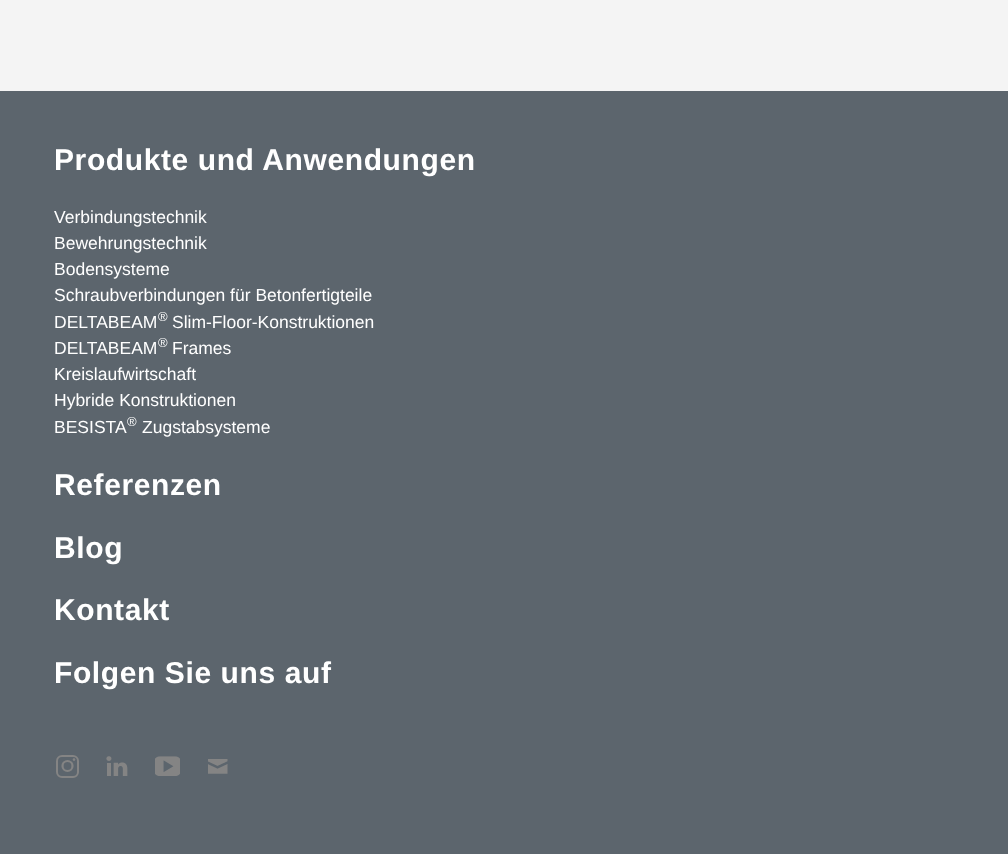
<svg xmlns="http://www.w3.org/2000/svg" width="1008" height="854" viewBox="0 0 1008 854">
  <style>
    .t1 { font: bold 30px Liberation Sans; letter-spacing: 0.6px; fill: #fff; }
    .t2 { font: 17.5px Liberation Sans; fill: #fff; }
    .t3 { font: 13px Liberation Sans; fill: #fff; }
  </style>
  <rect width="100%" height="100%" fill="#f4f4f4"/>
  <rect x="0" y="91" width="1008" height="763" fill="#5c656d"/>
  <text x="54" y="170" class="t1">Produkte und Anwendungen</text>
  <text x="54" y="223" class="t2">Verbindungstechnik</text>
  <text x="54" y="249" class="t2">Bewehrungstechnik</text>
  <text x="54" y="275" class="t2">Bodensysteme</text>
  <text x="54" y="301" class="t2">Schraubverbindungen für Betonfertigteile</text>
  <text x="54" y="328" class="t2">DELTABEAM</text>
  <text x="158" y="321" class="t3">®</text>
  <text x="172" y="328" class="t2">Slim-Floor-Konstruktionen</text>
  <text x="54" y="354" class="t2">DELTABEAM</text>
  <text x="158" y="347" class="t3">®</text>
  <text x="172" y="354" class="t2">Frames</text>
  <text x="54" y="380" class="t2">Kreislaufwirtschaft</text>
  <text x="54" y="406" class="t2">Hybride Konstruktionen</text>
  <text x="54" y="433" class="t2">BESISTA</text>
  <text x="127" y="426" class="t3">®</text>
  <text x="142" y="433" class="t2">Zugstabsysteme</text>
  <text x="54" y="495" class="t1">Referenzen</text>
  <text x="54" y="558" class="t1">Blog</text>
  <text x="54" y="620" class="t1">Kontakt</text>
  <text x="54" y="683" class="t1">Folgen Sie uns auf</text>
  <rect x="57" y="756" width="21" height="21" rx="5" fill="none" stroke="#848484" stroke-width="2"/>
  <circle cx="67.5" cy="766" r="5" fill="none" stroke="#848484" stroke-width="2.2"/>
  <circle cx="74" cy="759.6" r="1.3" fill="#848484"/>
  <image x="106" y="756" width="22" height="20" href="images/1.png"/>
  <image x="155" y="756" width="25" height="20" href="images/2.png"/>
  <image x="208" y="759" width="20" height="15" href="images/3.png"/>
</svg>
